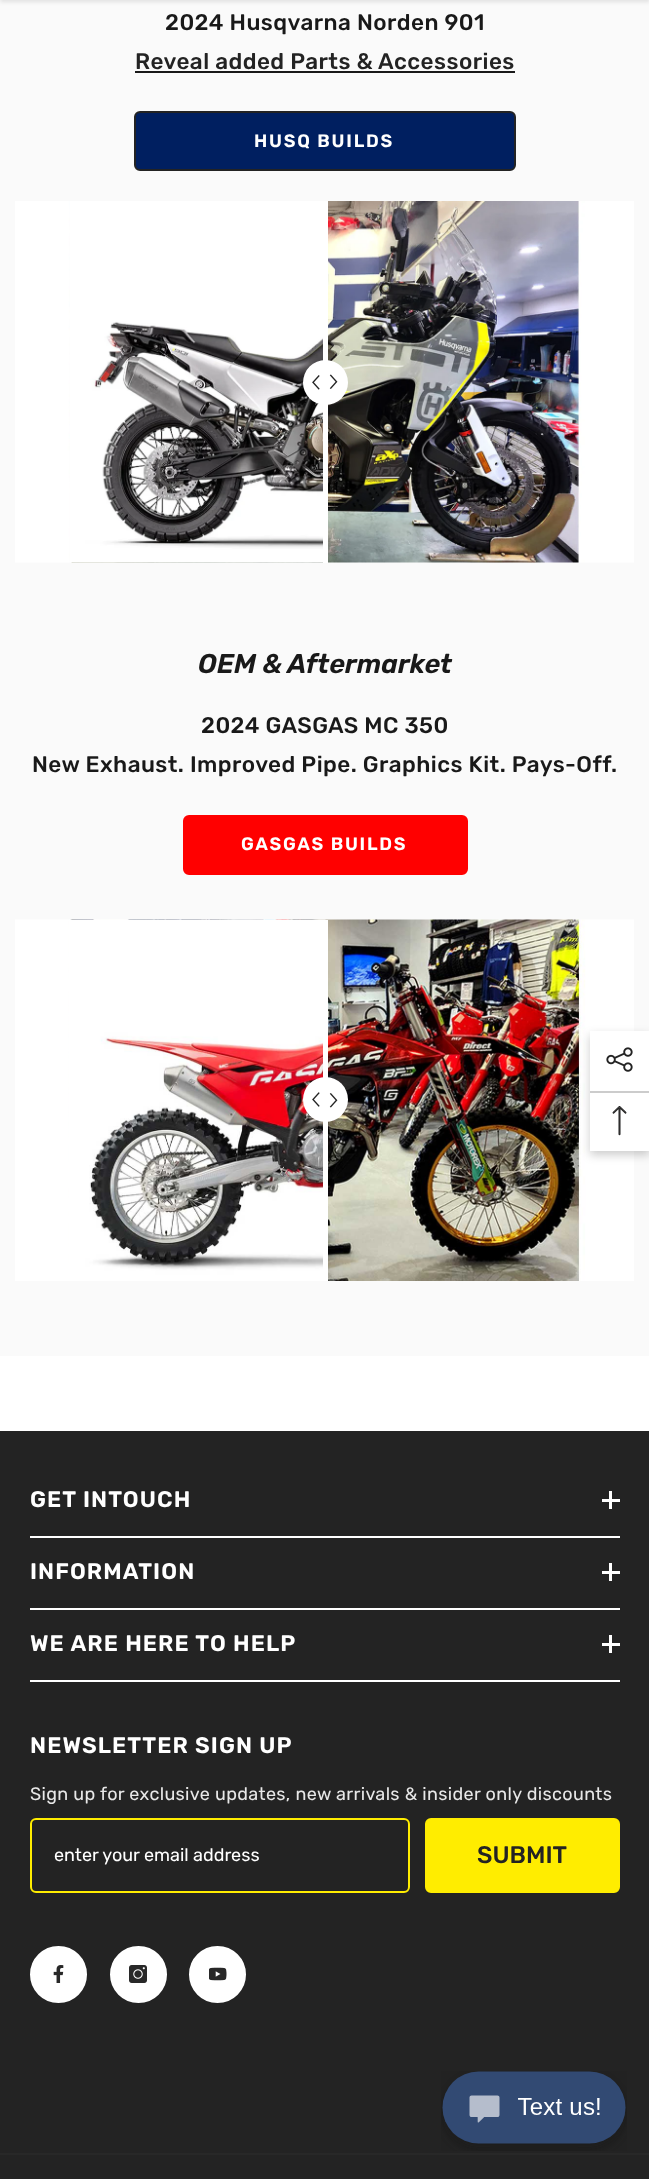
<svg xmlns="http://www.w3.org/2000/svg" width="649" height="2179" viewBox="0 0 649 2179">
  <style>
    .t1 { font: 500 22.5px Rubik; letter-spacing: 0.45px; fill: #191919; }
    .t2 { font: 500 22.5px Rubik; letter-spacing: 0.45px; fill: #232323; }
    .t3 { font: 600 18px Rubik; letter-spacing: 1.75px; fill: #fff; }
    .t4 { font: italic 600 27px Rubik; fill: #191919; }
    .t5 { font: 600 22.5px Rubik; letter-spacing: 1.1px; fill: #fff; }
    .t6 { font: 18px Rubik; letter-spacing: 0.35px; fill: #e8e8e8; }
    .t7 { font: 18px Rubik; fill: #fff; }
    .t8 { font: 500 24px Rubik; fill: #232323; }
  </style>
  <rect width="100%" height="100%" fill="#fff"/>
  <rect x="0" y="0" width="649" height="1356" fill="#fafafa"/>
  <rect x="0" y="-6" width="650" height="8" fill="#0000001a" filter="blur(2px)"/>
  <text x="165" y="30" class="t1">2024 Husqvarna Norden 901</text>
  <text x="135" y="69" class="t2">Reveal added Parts &amp; Accessories</text>
  <rect x="135" y="71" width="380" height="2" fill="#191919"/>
  <rect x="135" y="112" width="380" height="58" rx="5" fill="#001f60" stroke="#232323" stroke-width="2"/>
  <text x="254" y="147" class="t3">HUSQ BUILDS</text>
  <image x="15" y="201" width="619" height="362" href="images/1.png"/>
  <image x="70" y="201" width="253" height="362" href="images/2.png"/>
  <rect x="323" y="201" width="5" height="362" fill="#fff"/>
  <circle cx="325.5" cy="382.5" r="22.5" fill="#fff"/>
  <image x="312" y="375" width="8" height="15" href="images/3.png"/>
  <image x="329" y="374" width="9" height="15" href="images/4.png"/>
  <text x="198" y="673" class="t4">OEM &amp; Aftermarket</text>
  <text x="201" y="733" class="t1">2024 GASGAS MC 350</text>
  <text x="32" y="772" class="t1">New Exhaust. Improved Pipe. Graphics Kit. Pays-Off.</text>
  <rect x="184" y="816" width="283" height="58" rx="5" fill="#f00" stroke="#f00" stroke-width="2"/>
  <text x="241" y="850" class="t3">GASGAS BUILDS</text>
  <image x="15" y="919" width="619" height="362" href="images/5.png"/>
  <image x="69" y="919" width="257" height="362" href="images/6.png"/>
  <rect x="323" y="920" width="5" height="361" fill="#fff"/>
  <circle cx="325.5" cy="1099.5" r="22.5" fill="#fff"/>
  <image x="312" y="1092" width="8" height="15" href="images/7.png"/>
  <image x="329" y="1093" width="9" height="15" href="images/8.png"/>
  <rect x="0" y="1431" width="649" height="722" fill="#232323"/>
  <rect x="30" y="1536" width="590" height="2" fill="#fff"/>
  <text x="30" y="1507" class="t5">GET INTOUCH</text>
  <rect x="609" y="1491" width="3" height="18" fill="#fff"/>
  <rect x="602" y="1499" width="18" height="3" fill="#fff"/>
  <rect x="30" y="1608" width="590" height="2" fill="#fff"/>
  <text x="30" y="1579" class="t5">INFORMATION</text>
  <rect x="609" y="1563" width="3" height="18" fill="#fff"/>
  <rect x="602" y="1571" width="18" height="3" fill="#fff"/>
  <rect x="30" y="1680" width="590" height="2" fill="#fff"/>
  <text x="30" y="1651" class="t5">WE ARE HERE TO HELP</text>
  <rect x="609" y="1635" width="3" height="18" fill="#fff"/>
  <rect x="602" y="1643" width="18" height="3" fill="#fff"/>
  <text x="30" y="1753" class="t5">NEWSLETTER SIGN UP</text>
  <text x="30" y="1800" class="t6">Sign up for exclusive updates, new arrivals &amp; insider only discounts</text>
  <rect x="31" y="1819" width="378" height="73" rx="5" fill="none" stroke="#ffed00" stroke-width="2"/>
  <text x="54" y="1861" class="t7">enter your email address</text>
  <rect x="426" y="1819" width="193" height="73" rx="5" fill="#ffed00" stroke="#ffed00" stroke-width="2"/>
  <text x="477" y="1863" class="t8">SUBMIT</text>
  <circle cx="58.5" cy="1974.5" r="27.5" fill="#fff" stroke="#fff" stroke-width="2"/>
  <image x="53" y="1965" width="11" height="18" href="images/9.png"/>
  <circle cx="138.5" cy="1974.5" r="27.5" fill="#fff" stroke="#fff" stroke-width="2"/>
  <image x="129" y="1965" width="18" height="18" href="images/10.png"/>
  <circle cx="217.5" cy="1974.5" r="27.5" fill="#fff" stroke="#fff" stroke-width="2"/>
  <image x="209" y="1967" width="18" height="14" href="images/11.png"/>
  <rect x="0" y="2155" width="649" height="24" fill="#232323"/>
  <rect x="0" y="2153" width="649" height="2" fill="#282828"/>
  <rect x="590" y="1035" width="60" height="120" fill="#00000033" filter="blur(5px)"/>
  <rect x="590" y="1031" width="59" height="120" fill="#fff"/>
  <image x="606" y="1047" width="27" height="25" href="images/12.png"/>
  <rect x="590" y="1091" width="59" height="2" fill="#ccc"/>
  <image x="612" y="1106" width="15" height="30" href="images/13.png"/>
  <image x="441" y="2071" width="186" height="80" href="images/14.png"/>
</svg>
